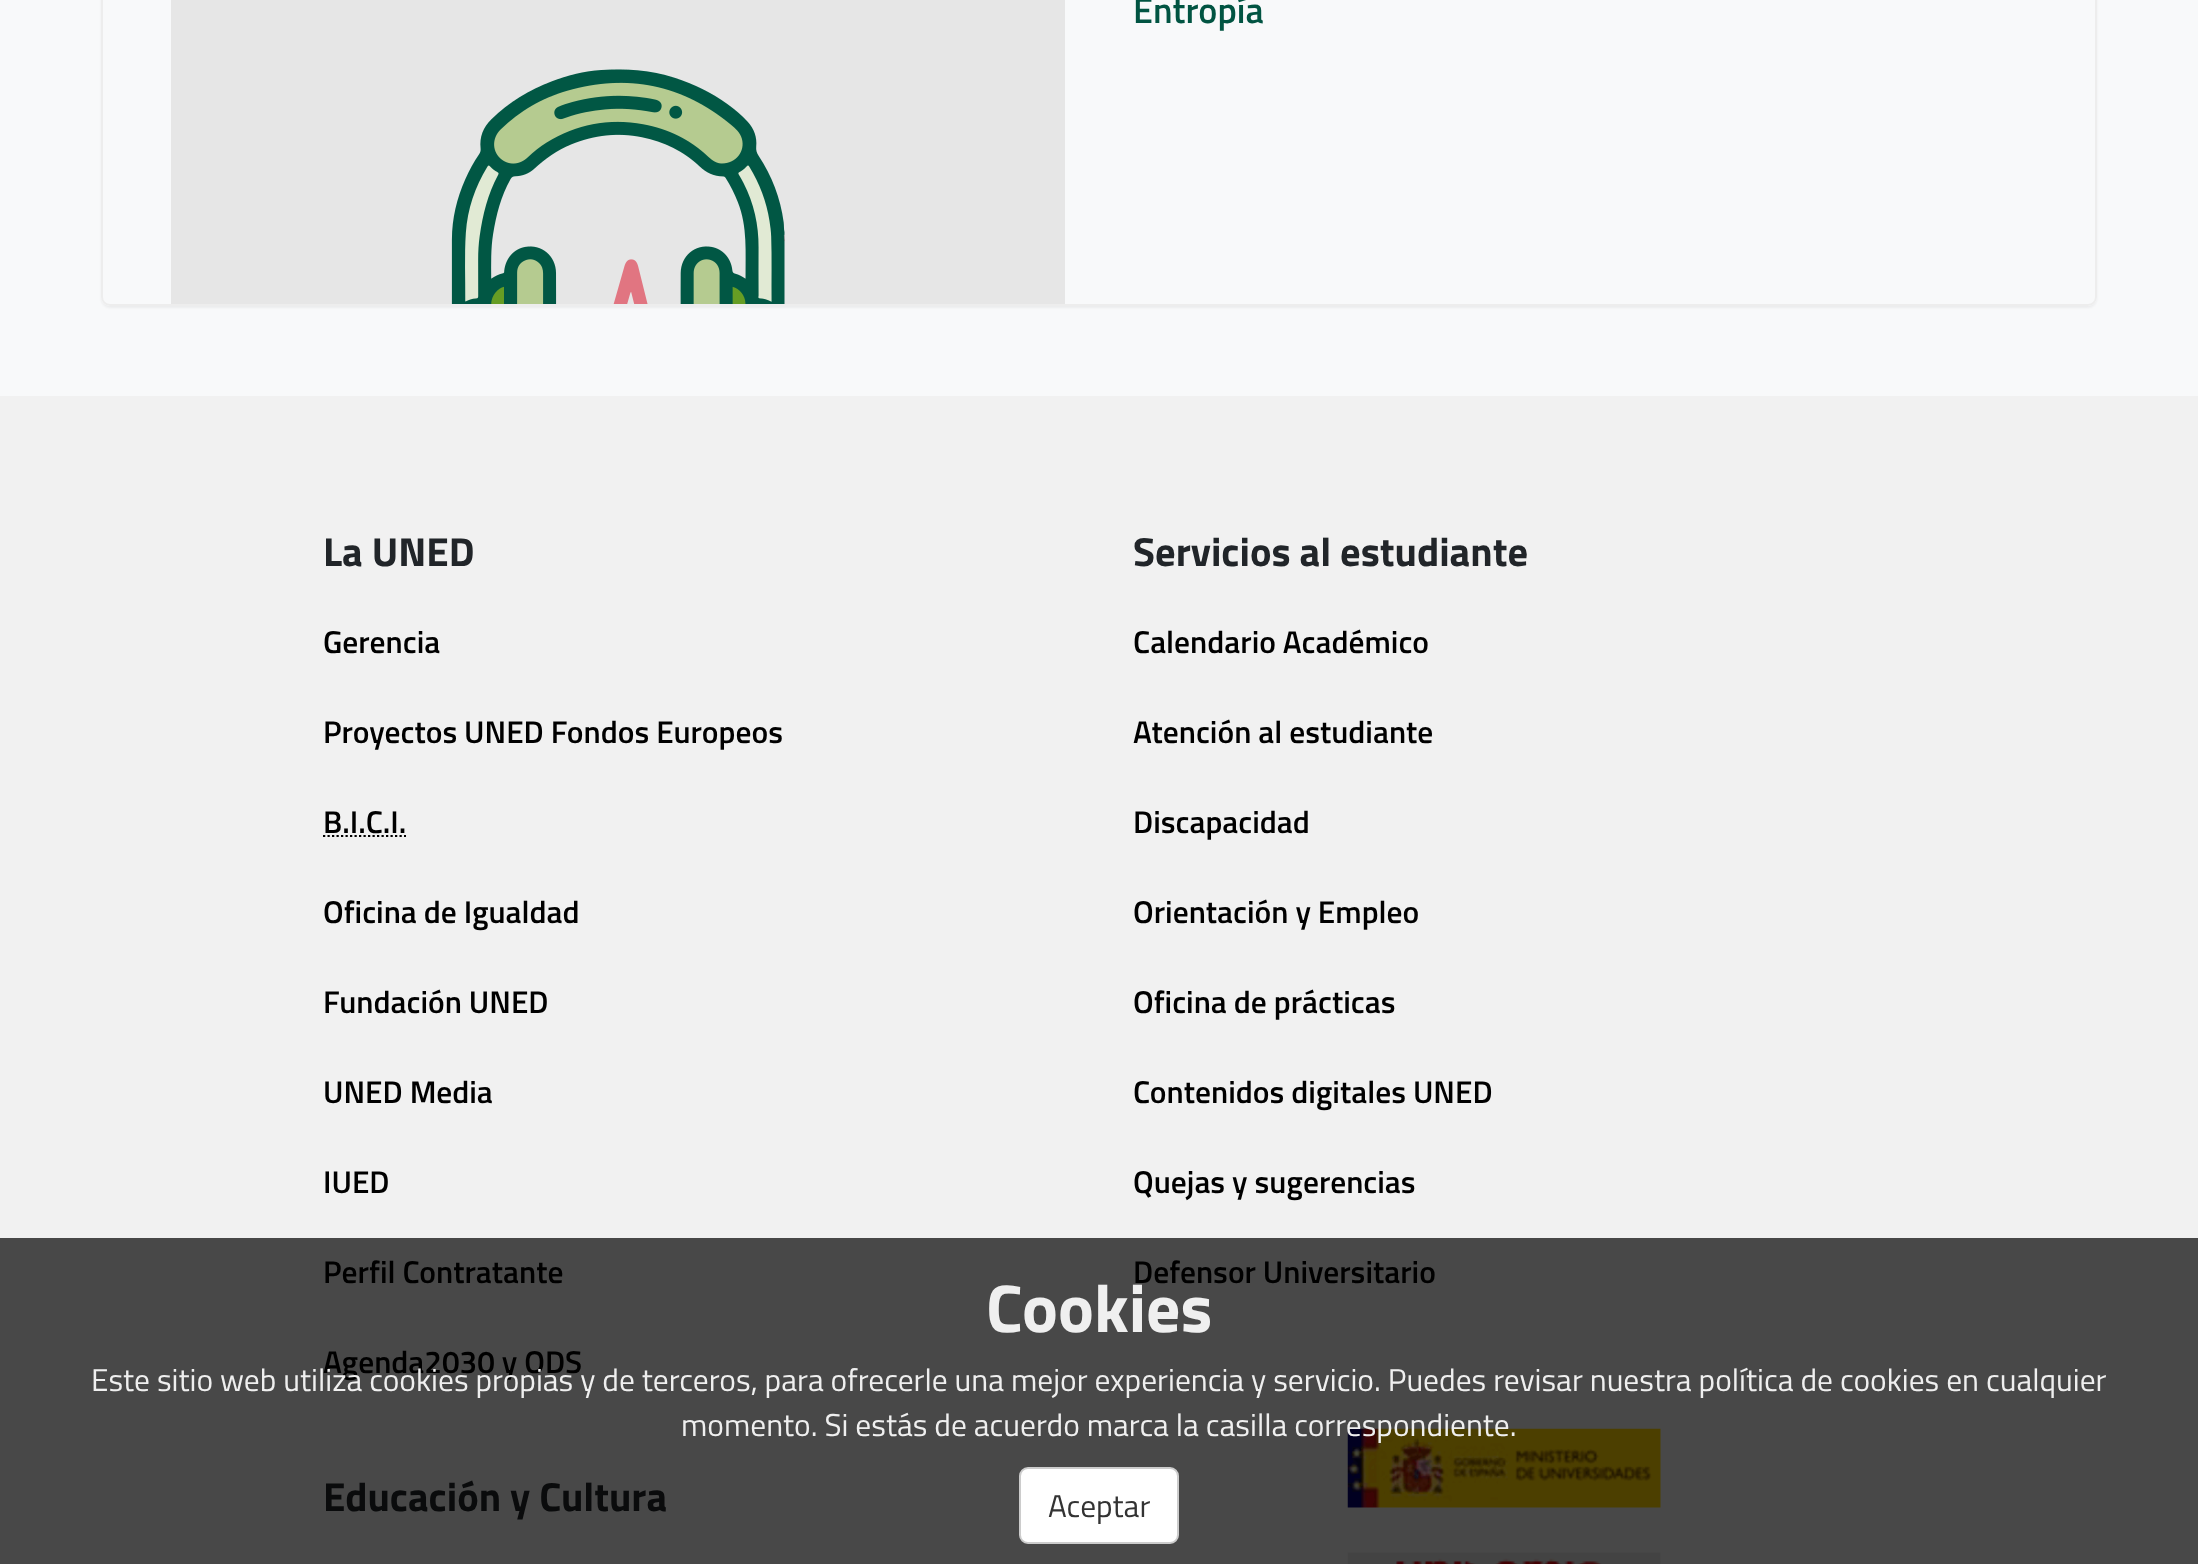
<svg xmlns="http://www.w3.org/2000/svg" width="2198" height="1564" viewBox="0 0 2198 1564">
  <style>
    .t1 { font: 600 36px Titillium Web; fill: #015442; }
    .t2 { font: bold 40.5px Titillium Web; fill: #212529; }
    .t3 { font: 600 31.5px Titillium Web; fill: #000; }
    .t4 { font: bold 40.5px Titillium Web; fill: #0a0b0c; }
    .t5 { font: bold 67.5px Titillium Web; fill: #efefef; }
    .t6 { font: 31.5px Titillium Web; fill: #efefef; }
    .t7 { font: 31.5px Titillium Web; fill: #333; }
  </style>
  <defs>
    <clipPath id="clip1"><path d="M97 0H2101V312H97ZM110-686H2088C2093-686 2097-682 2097-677V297C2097 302 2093 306 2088 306H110C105 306 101 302 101 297V-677C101-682 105-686 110-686Z" clip-rule="evenodd"/></clipPath>
  </defs>
  <rect width="100%" height="100%" fill="#f8f9fa"/>
  <g clip-path="url(#clip1)">
    <rect x="101" y="-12" width="1996" height="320" rx="9" fill="#0000000d" filter="blur(1px)"/>
  </g>
  <rect x="102" y="-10" width="1994" height="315" rx="8" fill="none" stroke="#ededed" stroke-width="2"/>
  <image x="171" y="0" width="894" height="304" href="images/1.png"/>
  <text x="1133" y="23" class="t1">Entropía</text>
  <rect x="0" y="396" width="2198" height="842" fill="#f1f1f1"/>
  <rect x="0" y="1238" width="2198" height="326" fill="#484848"/>
  <text x="323" y="566" class="t2">La UNED</text>
  <text x="323" y="653" class="t3">Gerencia</text>
  <text x="323" y="743" class="t3">Proyectos UNED Fondos Europeos</text>
  <text x="323" y="833" class="t3">B.I.C.I.</text>
  <path d="M323 836H406" fill="none" stroke="#000" stroke-width="2.2" stroke-dasharray="2.25 2.25"/>
  <text x="323" y="923" class="t3">Oficina de Igualdad</text>
  <text x="323" y="1013" class="t3">Fundación UNED</text>
  <text x="323" y="1103" class="t3">UNED Media</text>
  <text x="323" y="1193" class="t3">IUED</text>
  <text x="323" y="1283" class="t3">Perfil Contratante</text>
  <text x="323" y="1373" class="t3">Agenda2030 y ODS</text>
  <text x="1133" y="566" class="t2">Servicios al estudiante</text>
  <text x="1133" y="653" class="t3">Calendario Académico</text>
  <text x="1133" y="743" class="t3">Atención al estudiante</text>
  <text x="1133" y="833" class="t3">Discapacidad</text>
  <text x="1133" y="923" class="t3">Orientación y Empleo</text>
  <text x="1133" y="1013" class="t3">Oficina de prácticas</text>
  <text x="1133" y="1103" class="t3">Contenidos digitales UNED</text>
  <text x="1133" y="1193" class="t3">Quejas y sugerencias</text>
  <text x="1133" y="1283" class="t3">Defensor Universitario</text>
  <text x="323" y="1511" class="t4">Educación y Cultura</text>
  <image x="1347" y="1428" width="314" height="80" href="images/2.png"/>
  <image x="1347" y="1552" width="314" height="12" href="images/3.png"/>
  <text x="986" y="1332" class="t5">Cookies</text>
  <text x="91" y="1391" class="t6">Este sitio web utiliza cookies propias y de terceros, para ofrecerle una mejor experiencia y servicio. Puedes revisar nuestra política de cookies en cualquier</text>
  <text x="681" y="1436" class="t6">momento. Si estás de acuerdo marca la casilla correspondiente.</text>
  <rect x="1020" y="1468" width="158" height="75" rx="8" fill="#fff" stroke="#ccc" stroke-width="2"/>
  <text x="1048" y="1517" class="t7">Aceptar</text>
</svg>
